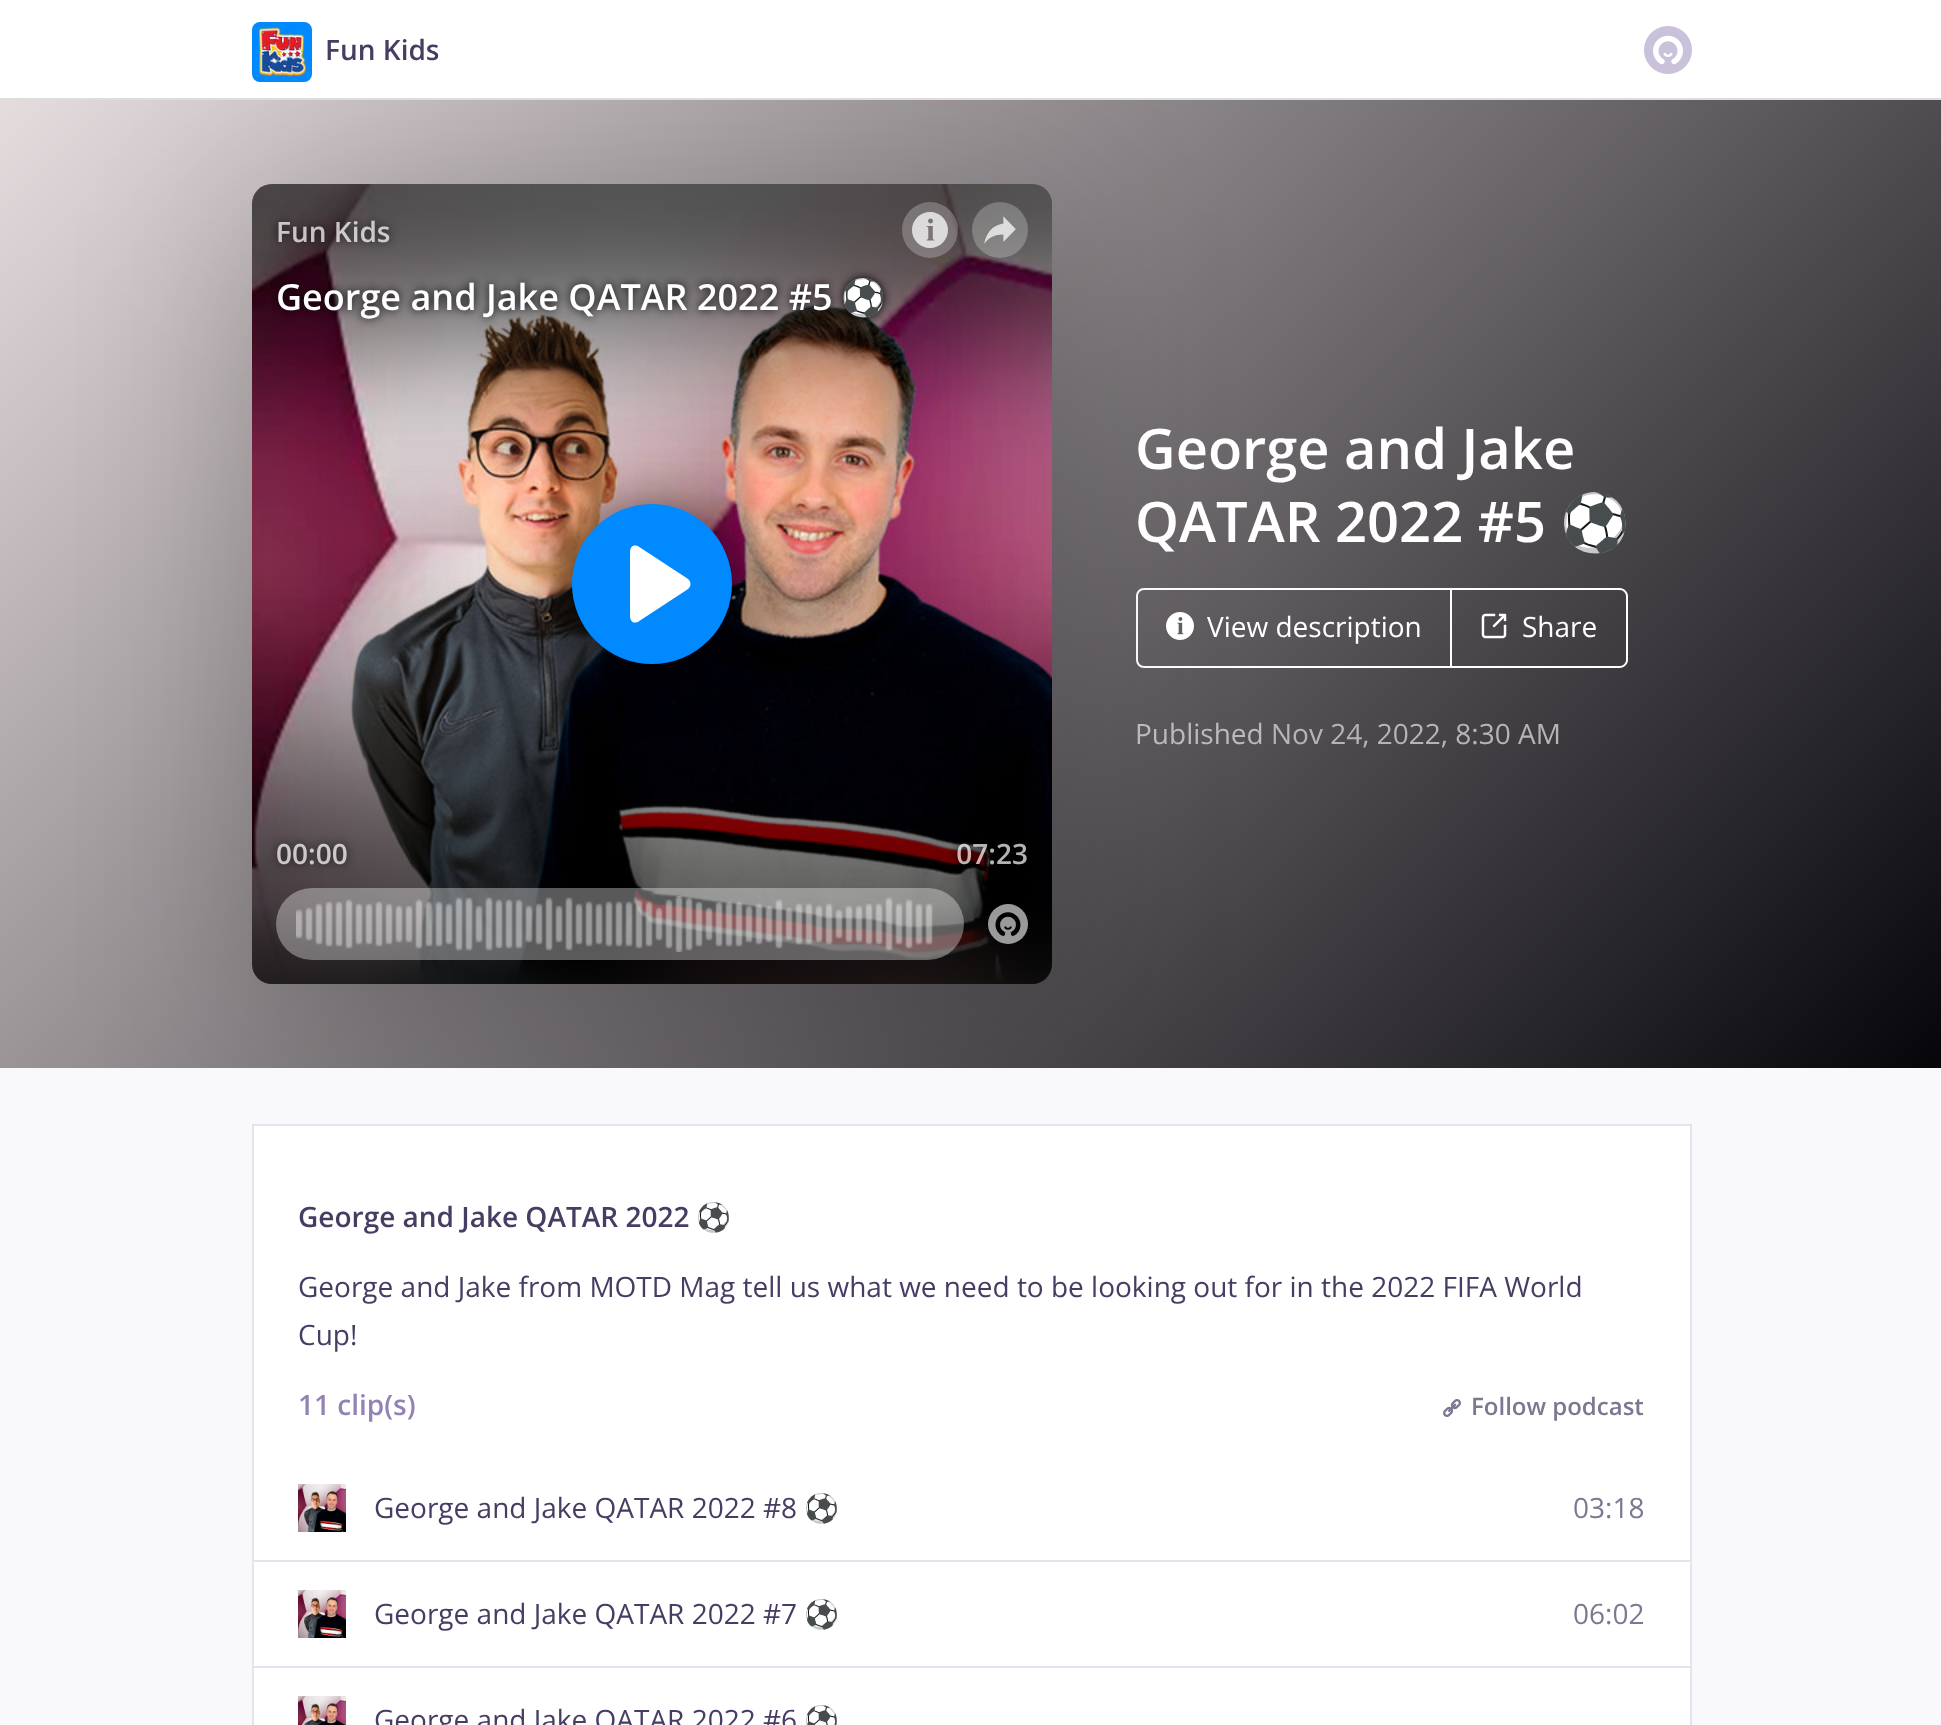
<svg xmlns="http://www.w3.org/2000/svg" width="1941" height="1725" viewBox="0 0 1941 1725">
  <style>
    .t1 { font: 600 28px Open Sans; fill: #483c63; }
    .t2 { font: 600 56px Open Sans; fill: #fff; }
    .t3 { font: bold 56px Noto Color Emoji; fill: #fff; }
    .t4 { font: 28px Open Sans; fill: #fff; }
    .t5 { font: 28px Open Sans; fill: #bcbabc; }
    .t6 { font: 28px Open Sans; fill: #b5b4b6; }
    .t7 { font: bold 28px Noto Color Emoji; fill: #483c63; }
    .t8 { font: 28px Open Sans; fill: #483c63; }
    .t9 { font: 600 28px Open Sans; fill: #9283b4; }
    .t10 { font: 600 24px Open Sans; fill: #7f7792; }
    .t11 { font: 28px Noto Color Emoji; fill: #483c63; }
    .t12 { font: 28px Open Sans; fill: #7f7792; }
  </style>
  <defs>
    <linearGradient id="g1" gradientUnits="userSpaceOnUse" x1="244" y1="-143" x2="1699" y2="1312"><stop offset="0" stop-color="#e5dcde"/><stop offset="1" stop-color="#05050a"/></linearGradient>
    <clipPath id="clip1"><rect x="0" y="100" width="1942" height="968"/></clipPath>
  </defs>
  <rect width="100%" height="100%" fill="#f9f8fb"/>
  <rect x="0" y="0" width="1941" height="98" fill="#fff"/>
  <rect x="0" y="98" width="1941" height="2" fill="#ddd"/>
  <image x="252" y="22" width="60" height="60" href="images/1.png"/>
  <text x="325" y="60" class="t1">Fun Kids</text>
  <image x="1644" y="26" width="48" height="48" href="images/2.png"/>
  <rect x="0" y="100" width="1941" height="968" fill="url(#g1)"/>
  <path d="M1144 589H1451V667H1144C1140 667 1137 664 1137 660V596C1137 592 1140 589 1144 589Z" fill="none" stroke="#fff" stroke-width="2"/>
  <rect x="253" y="1125" width="1438" height="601" fill="#fff" stroke="#e6e2ee" stroke-width="2"/>
  <g clip-path="url(#clip1)">
    <rect x="252" y="212" width="800" height="800" rx="20" fill="#00000033" filter="blur(84px)"/>
  </g>
  <rect x="252" y="184" width="800" height="800" rx="20" fill="#00000033"/>
  <image x="252" y="184" width="800" height="800" href="images/3.png"/>
  <text x="1135" y="469" class="t2">George and Jake</text>
  <text x="1135" y="542" class="t2">QATAR 2022 #5</text>
  <text x="1560" y="542" class="t3">⚽</text>
  <image x="1166" y="612" width="28" height="28" href="images/4.png"/>
  <text x="1207" y="637" class="t4">View description</text>
  <path d="M1452 588H1620C1624 588 1628 592 1628 596V660C1628 664 1624 668 1620 668H1452ZM1452 590H1620C1623 590 1626 593 1626 596V660C1626 663 1623 666 1620 666H1452Z" fill="#fff" fill-rule="evenodd"/>
  <image x="1481" y="613" width="26" height="26" href="images/5.png"/>
  <text x="1522" y="637" class="t4">Share</text>
  <text x="1135" y="744" class="t5">Published</text>
  <text x="1271" y="744" class="t6">Nov 24, 2022, 8:30 AM</text>
  <text x="298" y="1227" class="t1">George and Jake QATAR 2022</text>
  <text x="696" y="1227" class="t7">⚽</text>
  <text x="298" y="1297" class="t8">George and Jake from MOTD Mag tell us what we need to be looking out for in the 2022 FIFA World</text>
  <text x="298" y="1345" class="t8">Cup!</text>
  <text x="298" y="1415" class="t9">11 clip(s)</text>
  <image x="1443" y="1399" width="18" height="18" href="images/6.png"/>
  <text x="1471" y="1415" class="t10">Follow podcast</text>
  <image x="298" y="1484" width="48" height="48" href="images/7.png"/>
  <text x="374" y="1518" class="t8">George and Jake QATAR 2022 #8</text>
  <text x="804" y="1518" class="t11">⚽</text>
  <text x="1573" y="1518" class="t12">03:18</text>
  <rect x="254" y="1560" width="1436" height="2" fill="#e6e2ee"/>
  <image x="298" y="1590" width="48" height="48" href="images/7.png"/>
  <text x="374" y="1624" class="t8">George and Jake QATAR 2022 #7</text>
  <text x="804" y="1624" class="t11">⚽</text>
  <text x="1573" y="1624" class="t12">06:02</text>
  <rect x="254" y="1666" width="1436" height="2" fill="#e6e2ee"/>
  <image x="298" y="1696" width="48" height="29" href="images/8.png"/>
  <text x="374" y="1730" class="t8">George and Jake QATAR 2022 #6</text>
  <text x="804" y="1730" class="t11">⚽</text>
</svg>
